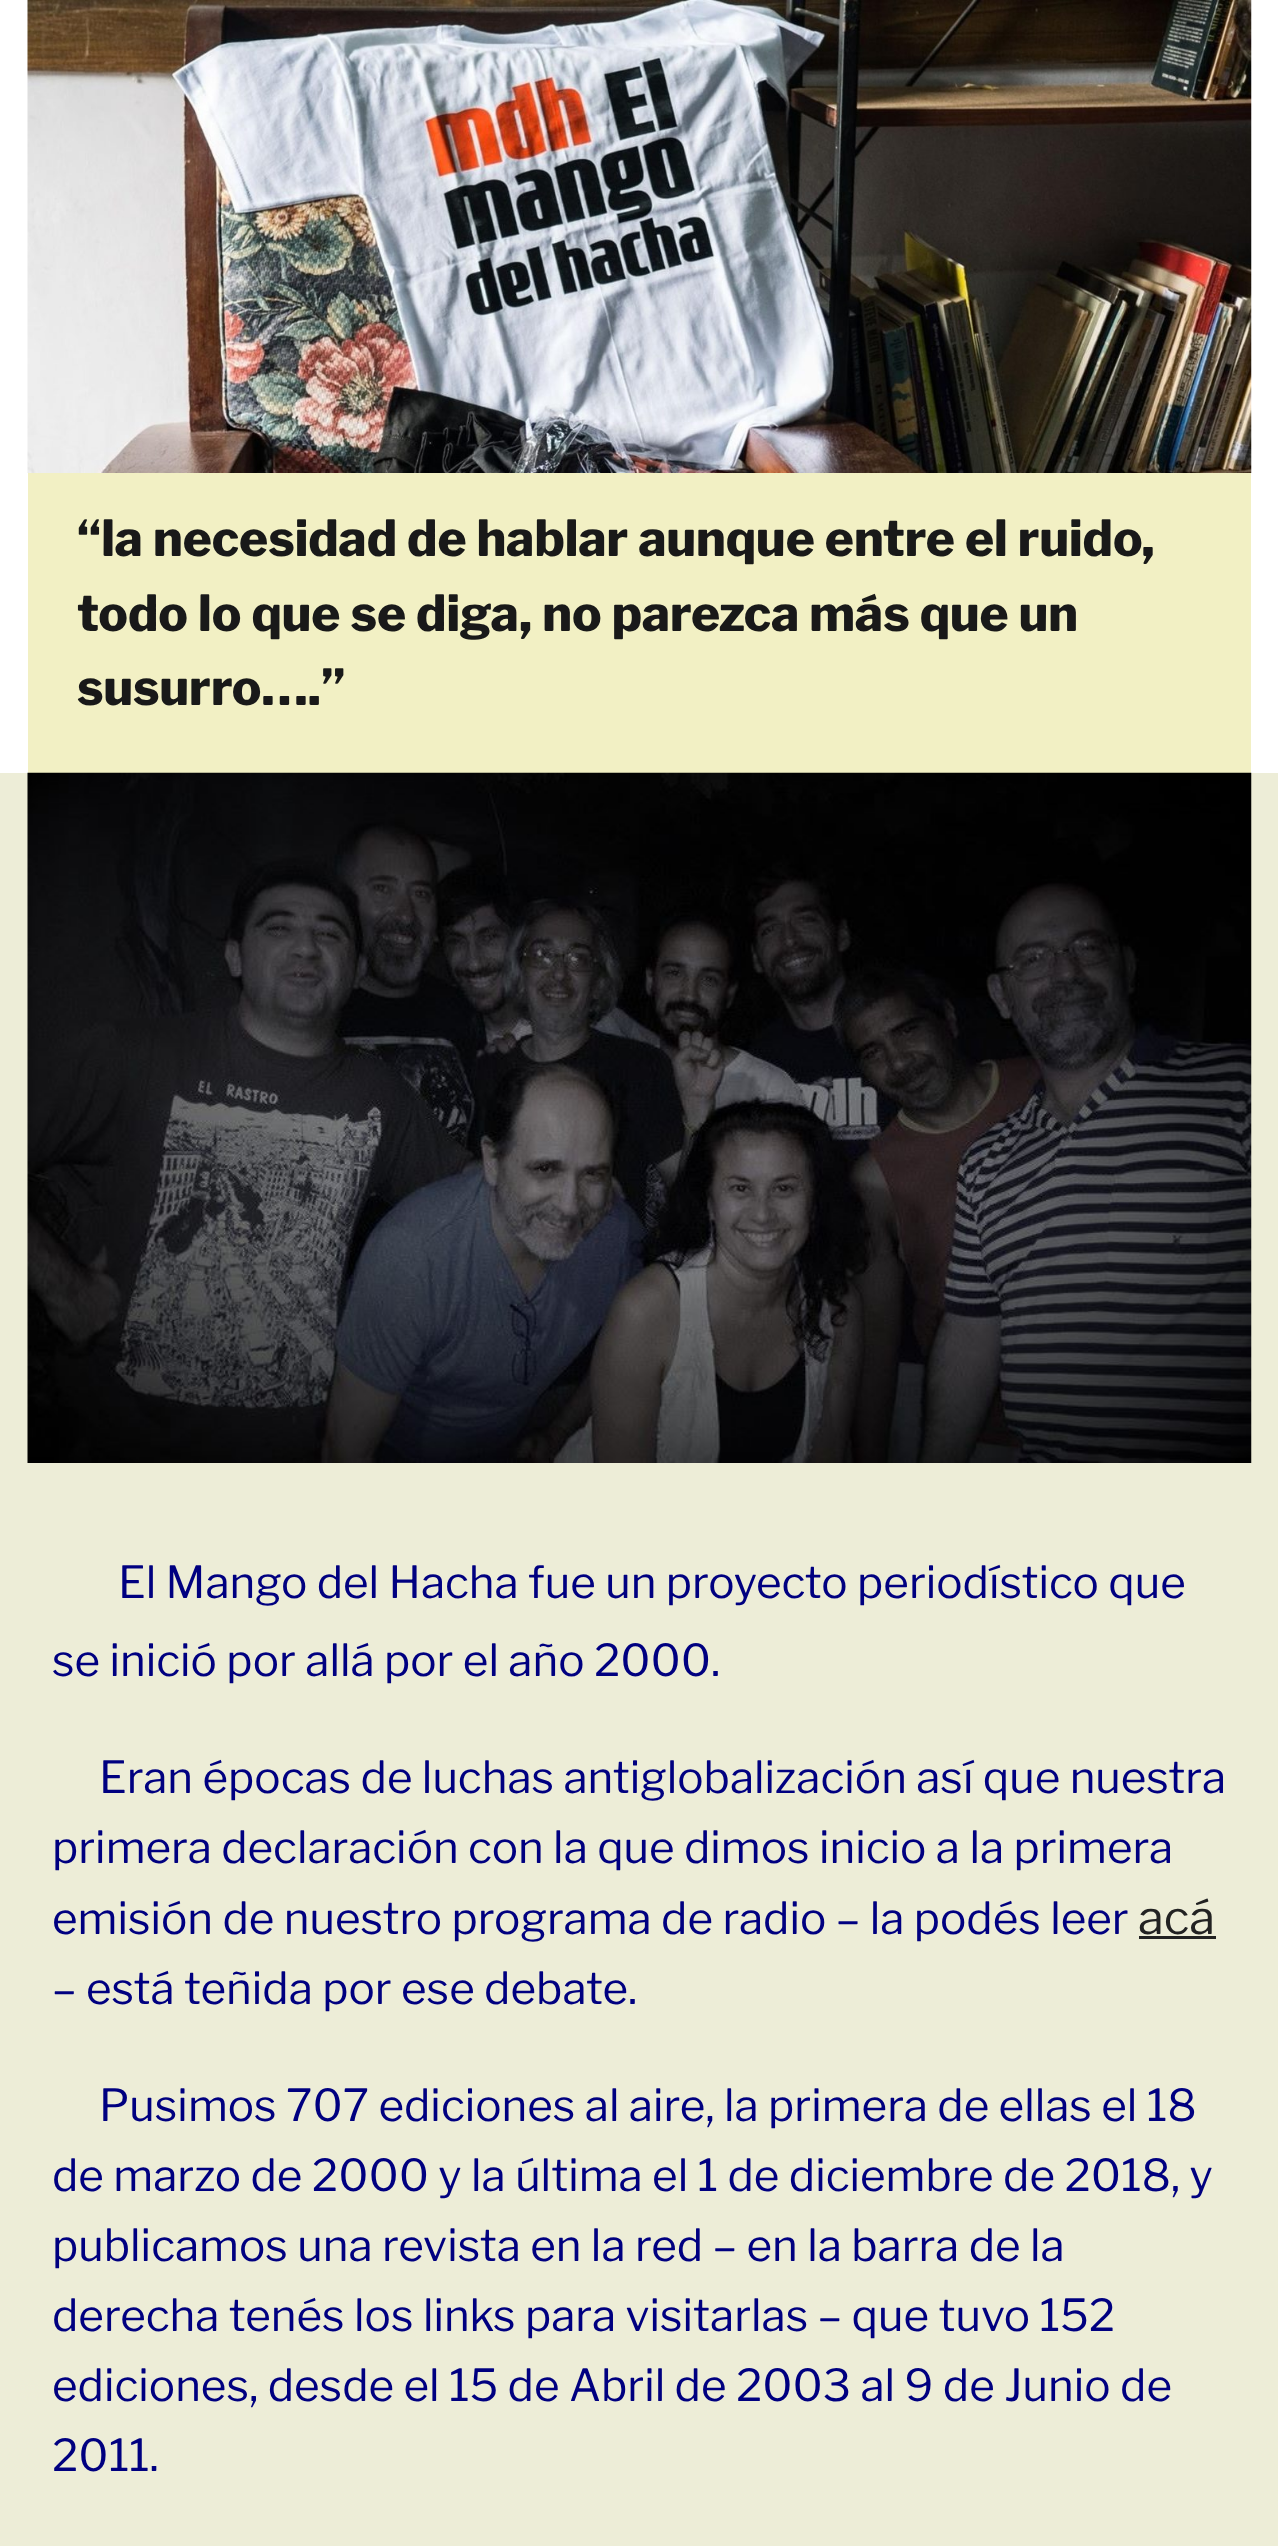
<svg xmlns="http://www.w3.org/2000/svg" width="1278" height="2546" viewBox="0 0 1278 2546">
  <style>
    .t1 { font: 800 49.5px Libre Franklin; fill: #191919; }
    .t2 { font: 44px Libre Franklin; fill: #000080; }
    .t3 { font: 47px Libre Franklin; fill: #222; }
  </style>
  <rect width="100%" height="100%" fill="#fff"/>
  <image x="27" y="0" width="1225" height="473" href="images/1.png"/>
  <rect x="28" y="473" width="1223" height="300" fill="#f2f0c4"/>
  <text x="77" y="556" class="t1">“la necesidad de hablar aunque entre el ruido,</text>
  <text x="77" y="631" class="t1">todo lo que se diga, no parezca más que un</text>
  <text x="77" y="705" class="t1">susurro….”</text>
  <rect x="0" y="773" width="1278" height="1773" fill="#ededd7"/>
  <image x="27" y="772" width="1225" height="691" href="images/2.png"/>
  <text x="118" y="1598" class="t2">El Mango del Hacha fue un proyecto periodístico que</text>
  <text x="52" y="1676" class="t2">se inició por allá por el año 2000.</text>
  <text x="99" y="1793" class="t2">Eran épocas de luchas antiglobalización así que nuestra</text>
  <text x="52" y="1863" class="t2">primera declaración con la que dimos inicio a la primera</text>
  <text x="52" y="1934" class="t2">emisión de nuestro programa de radio – la podés leer</text>
  <text x="1138" y="1934" class="t3">acá</text>
  <rect x="1139" y="1936" width="77" height="3" fill="#222"/>
  <text x="52" y="2004" class="t2">– está teñida por ese debate.</text>
  <text x="99" y="2121" class="t2">Pusimos 707 ediciones al aire, la primera de ellas el 18</text>
  <text x="52" y="2191" class="t2">de marzo de 2000 y la última el 1 de diciembre de 2018, y</text>
  <text x="52" y="2261" class="t2">publicamos una revista en la red – en la barra de la</text>
  <text x="52" y="2331" class="t2">derecha tenés los links para visitarlas – que tuvo 152</text>
  <text x="52" y="2401" class="t2">ediciones, desde el 15 de Abril de 2003 al 9 de Junio de</text>
  <text x="52" y="2471" class="t2">2011.</text>
</svg>
